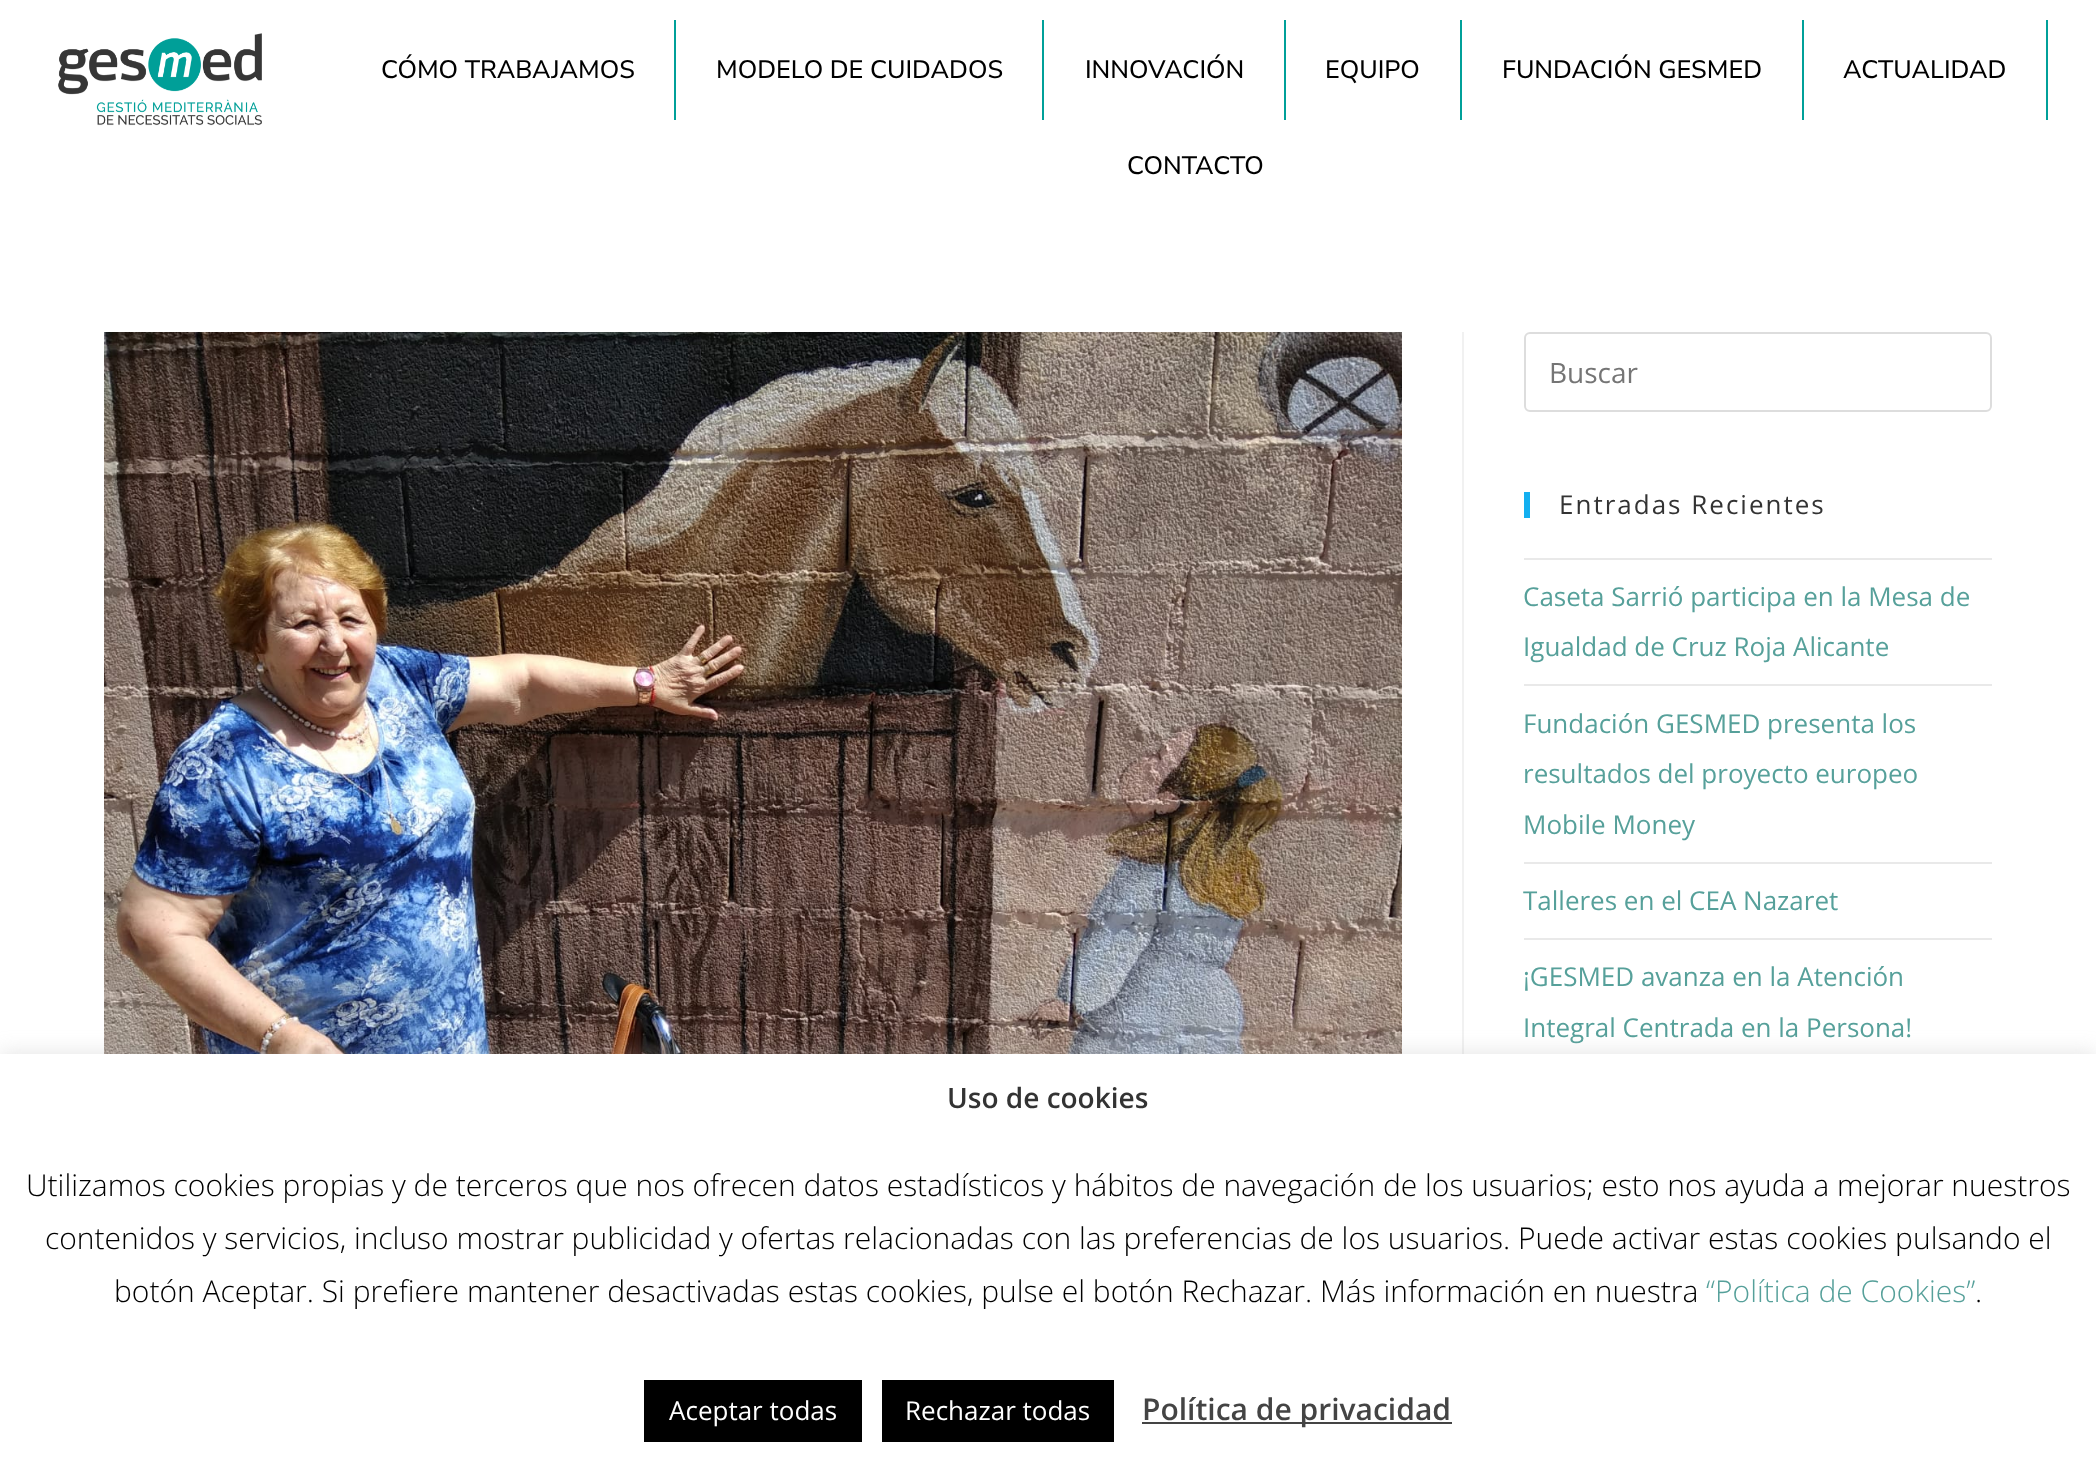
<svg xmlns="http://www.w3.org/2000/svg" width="2096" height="1475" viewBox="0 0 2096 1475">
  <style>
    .t1 { font: 500 25.25px Nunito Sans; fill: #000; }
    .t2 { font: 28px Open Sans; fill: #757575; }
    .t3 { font: 26px Open Sans; letter-spacing: 2px; fill: #333; }
    .t4 { font: 26px Open Sans; fill: #56a09a; }
    .t5 { font: 600 28px Open Sans; fill: #333; }
    .t6 { font: 300 30px Open Sans; fill: #000; }
    .t7 { font: 300 30px Open Sans; fill: #56a09a; }
    .t8 { font: 26px Open Sans; fill: #fff; }
    .t9 { font: 600 30px Open Sans; fill: #444; }
  </style>
  <rect width="100%" height="100%" fill="#fff"/>
  <image x="58" y="33" width="204" height="93" href="images/1.png"/>
  <text x="381" y="78" class="t1">CÓMO TRABAJAMOS</text>
  <rect x="674" y="20" width="2" height="100" fill="#00a099"/>
  <text x="716" y="78" class="t1">MODELO DE CUIDADOS</text>
  <rect x="1042" y="20" width="2" height="100" fill="#00a099"/>
  <text x="1085" y="78" class="t1">INNOVACIÓN</text>
  <rect x="1284" y="20" width="2" height="100" fill="#00a099"/>
  <text x="1325" y="78" class="t1">EQUIPO</text>
  <rect x="1460" y="20" width="2" height="100" fill="#00a099"/>
  <text x="1502" y="78" class="t1">FUNDACIÓN GESMED</text>
  <rect x="1802" y="20" width="2" height="100" fill="#00a099"/>
  <text x="1843" y="78" class="t1">ACTUALIDAD</text>
  <rect x="2046" y="20" width="2" height="100" fill="#00a099"/>
  <text x="1127" y="174" class="t1">CONTACTO</text>
  <rect x="1462" y="332" width="2" height="722" fill="#f1f1f1"/>
  <image x="104" y="332" width="1298" height="722" href="images/2.png"/>
  <rect x="1525" y="333" width="466" height="78" rx="5" fill="none" stroke="#ddd" stroke-width="2"/>
  <text x="1549" y="383" class="t2">Buscar</text>
  <rect x="1524" y="492" width="6" height="26" fill="#13aff0"/>
  <text x="1559" y="514" class="t3">Entradas Recientes</text>
  <rect x="1524" y="558" width="468" height="2" fill="#e9e9e9"/>
  <rect x="1524" y="684" width="468" height="2" fill="#e9e9e9"/>
  <text x="1523" y="606" class="t4">Caseta Sarrió participa en la Mesa de</text>
  <text x="1523" y="656" class="t4">Igualdad de Cruz Roja Alicante</text>
  <rect x="1524" y="862" width="468" height="2" fill="#e9e9e9"/>
  <text x="1523" y="733" class="t4">Fundación GESMED presenta los</text>
  <text x="1523" y="783" class="t4">resultados del proyecto europeo</text>
  <text x="1523" y="834" class="t4">Mobile Money</text>
  <rect x="1524" y="938" width="468" height="2" fill="#e9e9e9"/>
  <text x="1523" y="910" class="t4">Talleres en el CEA Nazaret</text>
  <text x="1523" y="986" class="t4">¡GESMED avanza en la Atención</text>
  <text x="1523" y="1037" class="t4">Integral Centrada en la Persona!</text>
  <rect x="0" y="1052" width="2096" height="422" fill="#acabab4d" filter="blur(10px)"/>
  <rect x="0" y="1054" width="2096" height="421" fill="#fff"/>
  <text x="947" y="1108" class="t5">Uso de cookies</text>
  <text x="26" y="1196" class="t6">Utilizamos cookies propias y de terceros que nos ofrecen datos estadísticos y hábitos de navegación de los usuarios; esto nos ayuda a mejorar nuestros</text>
  <text x="45" y="1249" class="t6">contenidos y servicios, incluso mostrar publicidad y ofertas relacionadas con las preferencias de los usuarios. Puede activar estas cookies pulsando el</text>
  <text x="114" y="1302" class="t6">botón Aceptar. Si prefiere mantener desactivadas estas cookies, pulse el botón Rechazar. Más información en nuestra</text>
  <text x="1706" y="1302" class="t7">“Política de Cookies”</text>
  <text x="1975" y="1302" class="t6">.</text>
  <rect x="644" y="1380" width="218" height="62" fill="#000"/>
  <text x="669" y="1420" class="t8">Aceptar todas</text>
  <rect x="882" y="1380" width="232" height="62" fill="#000"/>
  <text x="905" y="1420" class="t8">Rechazar todas</text>
  <rect x="1142" y="1422" width="310" height="2" fill="#444"/>
  <text x="1142" y="1420" class="t9">Política de privacidad</text>
</svg>
